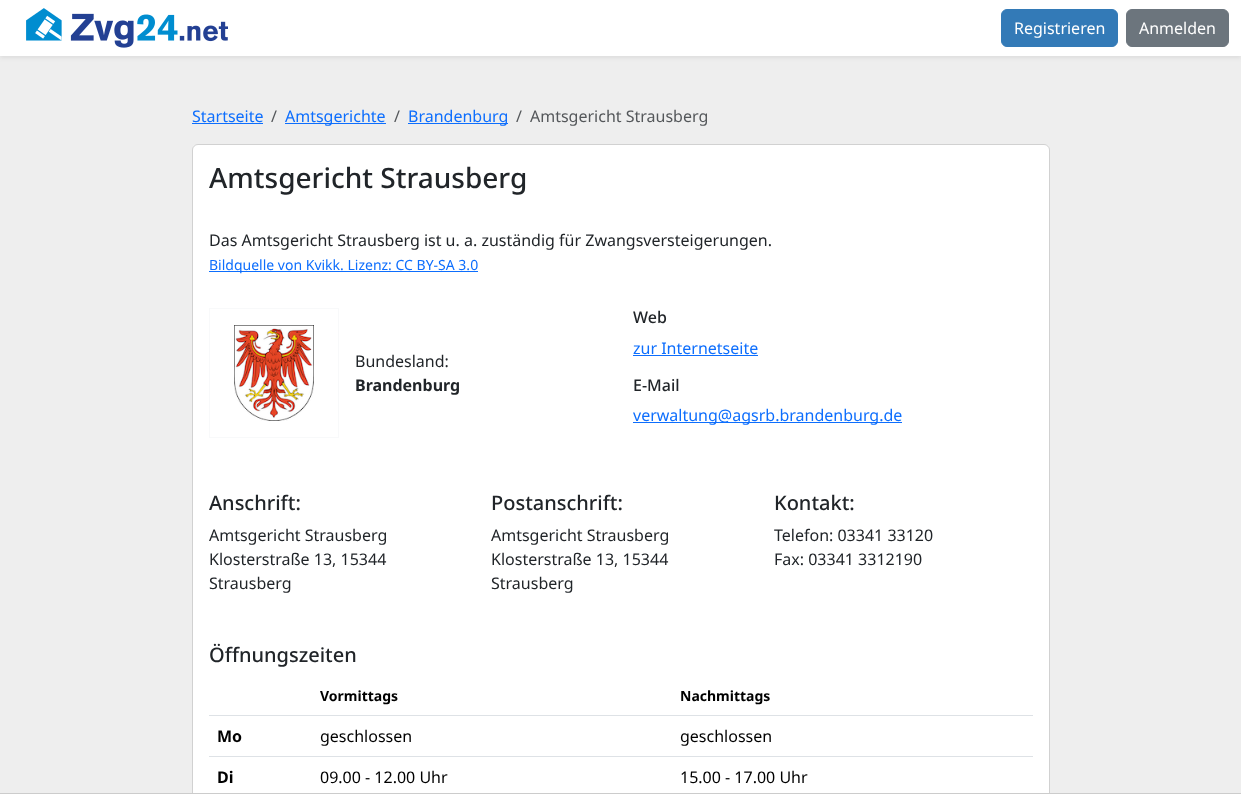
<svg xmlns="http://www.w3.org/2000/svg" width="1241" height="804" viewBox="0 0 1241 804">
  <style>
    .t1 { font: 16px Noto Sans; fill: #fff; }
    .t2 { font: 16px Noto Sans; fill: #0d6efd; }
    .t3 { font: 16px Noto Sans; fill: #54575a; }
    .t4 { font: 500 28px Noto Sans; fill: #212529; }
    .t5 { font: 16px Noto Sans; fill: #212529; }
    .t6 { font: 14px Noto Sans; fill: #0d6efd; }
    .t7 { font: bold 16px Noto Sans; fill: #212529; }
    .t8 { font: 500 16px Noto Sans; fill: #212529; }
    .t9 { font: 500 20px Noto Sans; fill: #212529; }
    .t10 { font: bold 14px Noto Sans; fill: #000; }
    .t11 { font: bold 16px Noto Sans; fill: #000; }
    .t12 { font: 16px Noto Sans; fill: #000; }
  </style>
  <rect width="100%" height="100%" fill="#eee"/>
  <rect x="0" y="2" width="1241" height="56" fill="#00000012" filter="blur(2px)"/>
  <rect x="0" y="0" width="1241" height="56" fill="#fff"/>
  <image x="26" y="8" width="202" height="40" href="images/1.png"/>
  <rect x="1001.5" y="9.5" width="116" height="37" rx="5.5" fill="#337ab7" stroke="#337ab7"/>
  <text x="1014" y="34" class="t1">Registrieren</text>
  <rect x="1126.5" y="9.5" width="102" height="37" rx="5.5" fill="#6c757d" stroke="#6c757d"/>
  <text x="1139" y="34" class="t1">Anmelden</text>
  <text x="192" y="122" class="t2">Startseite</text>
  <rect x="192" y="123" width="71" height="1" fill="#0d6efd"/>
  <text x="271" y="122" class="t3">/</text>
  <rect x="285" y="123" width="101" height="1" fill="#0d6efd"/>
  <text x="285" y="122" class="t2">Amtsgerichte</text>
  <text x="394" y="122" class="t3">/</text>
  <rect x="408" y="123" width="100" height="1" fill="#0d6efd"/>
  <text x="408" y="122" class="t2">Brandenburg</text>
  <text x="516" y="122" class="t3">/</text>
  <text x="530" y="122" class="t3">Amtsgericht Strausberg</text>
  <rect x="192" y="144" width="858" height="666" rx="6" fill="#fff"/>
  <rect x="192.5" y="144.5" width="857" height="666" rx="5.5" fill="none" stroke="#0000002e"/>
  <text x="209" y="188" class="t4">Amtsgericht Strausberg</text>
  <text x="209" y="246" class="t5">Das Amtsgericht Strausberg ist u. a. zuständig für Zwangsversteigerungen.</text>
  <rect x="209" y="271" width="269" height="1" fill="#0d6efd"/>
  <text x="209" y="270" class="t6">Bildquelle von Kvikk. Lizenz: CC BY-SA 3.0</text>
  <rect x="209.5" y="308.5" width="129" height="129" fill="none" stroke="#f8f9fa"/>
  <image x="234" y="325" width="80" height="96" href="images/2.png"/>
  <text x="355" y="367" class="t5">Bundesland:</text>
  <text x="355" y="391" class="t7">Brandenburg</text>
  <text x="633" y="323" class="t8">Web</text>
  <text x="633" y="354" class="t2">zur Internetseite</text>
  <rect x="633" y="355" width="125" height="1" fill="#0d6efd"/>
  <text x="633" y="391" class="t8">E-Mail</text>
  <rect x="633" y="422" width="269" height="1" fill="#0d6efd"/>
  <text x="633" y="421" class="t2">verwaltung@agsrb.brandenburg.de</text>
  <text x="209" y="510" class="t9">Anschrift:</text>
  <text x="209" y="541" class="t5">Amtsgericht Strausberg</text>
  <text x="209" y="565" class="t5">Klosterstraße 13, 15344</text>
  <text x="209" y="589" class="t5">Strausberg</text>
  <text x="491" y="510" class="t9">Postanschrift:</text>
  <text x="491" y="541" class="t5">Amtsgericht Strausberg</text>
  <text x="491" y="565" class="t5">Klosterstraße 13, 15344</text>
  <text x="491" y="589" class="t5">Strausberg</text>
  <text x="774" y="510" class="t9">Kontakt:</text>
  <text x="774" y="541" class="t5">Telefon: 03341 33120</text>
  <text x="774" y="565" class="t5">Fax: 03341 3312190</text>
  <text x="209" y="662" class="t9">Öffnungszeiten</text>
  <text x="320" y="701" class="t10">Vormittags</text>
  <rect x="209" y="715" width="824" height="1" fill="#dee2e6"/>
  <text x="680" y="701" class="t10">Nachmittags</text>
  <text x="217" y="742" class="t11">Mo</text>
  <text x="320" y="742" class="t12">geschlossen</text>
  <rect x="209" y="756" width="824" height="1" fill="#dee2e6"/>
  <text x="680" y="742" class="t12">geschlossen</text>
  <text x="217" y="783" class="t11">Di</text>
  <text x="320" y="783" class="t12">09.00 - 12.00 Uhr</text>
  <text x="680" y="783" class="t12">15.00 - 17.00 Uhr</text>
  <rect x="0" y="794" width="1241" height="10" fill="#fff"/>
  <rect x="0" y="793" width="1241" height="1" fill="#ccc"/>
</svg>
